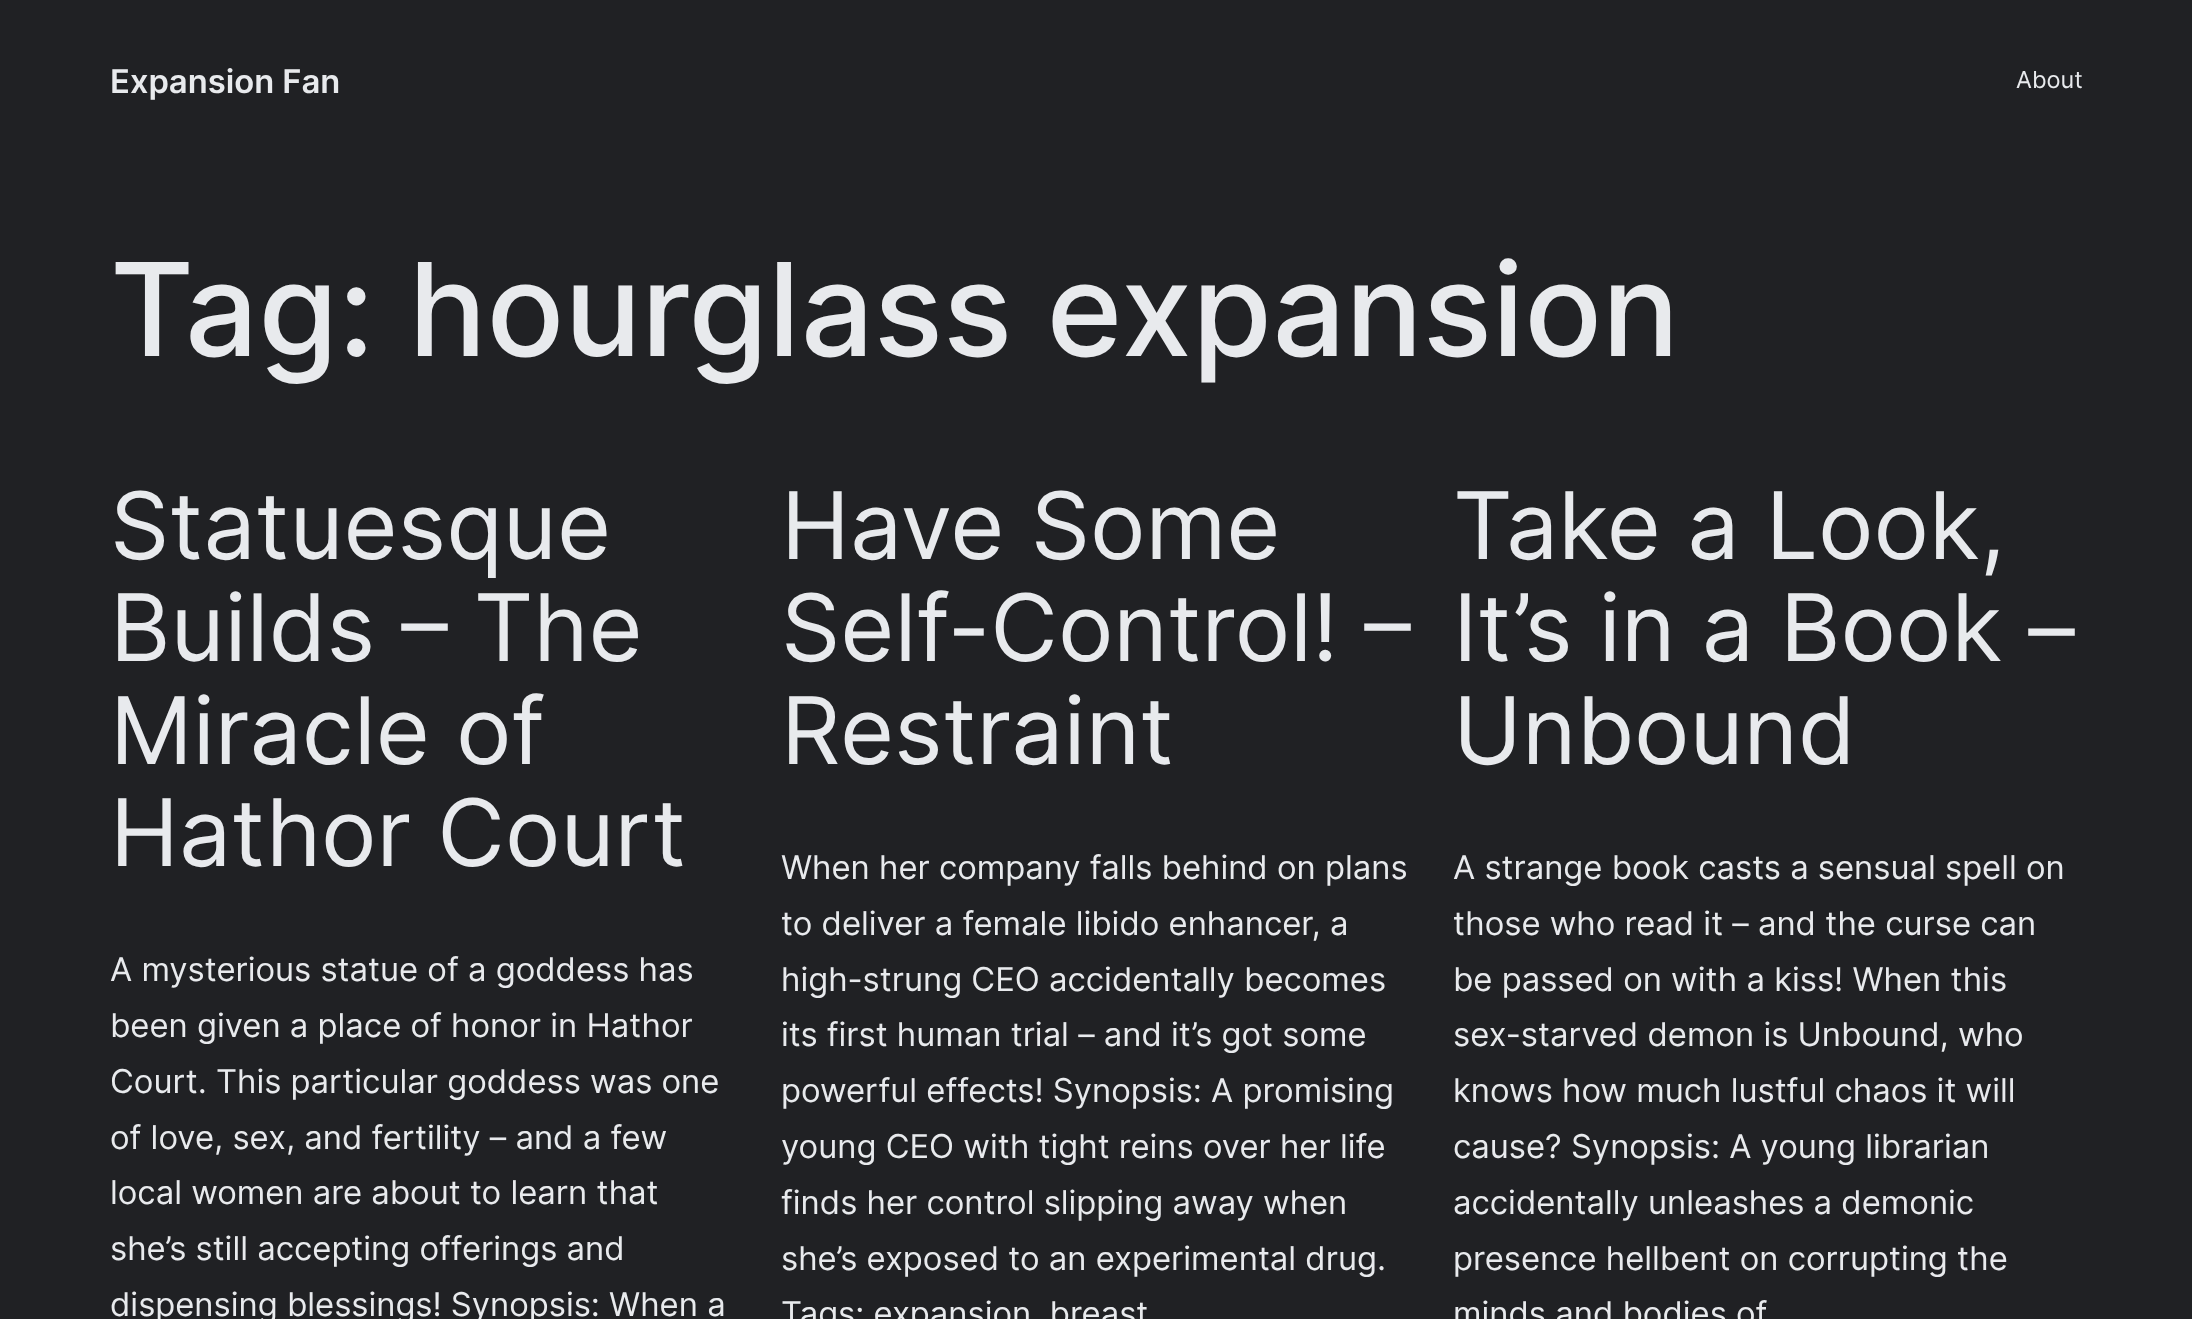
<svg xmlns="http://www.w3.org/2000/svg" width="2192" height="1319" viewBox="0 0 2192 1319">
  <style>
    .t1 { font: 600 32.8px Inter; fill: #e8eaed; }
    .t2 { font: 23.5px Inter; fill: #e8eaed; }
    .t3 { font: 500 129.25px Inter; fill: #e8eaed; }
    .t4 { font: 93px Inter; fill: #e8eaed; }
    .t5 { font: 32.8px Inter; fill: #e8eaed; }
  </style>
  <rect width="100%" height="100%" fill="#202124"/>
  <text x="110" y="93" class="t1">Expansion Fan</text>
  <text x="2016" y="88" class="t2">About</text>
  <text x="110" y="356" class="t3">Tag: hourglass expansion</text>
  <text x="110" y="559" class="t4">Statuesque</text>
  <text x="110" y="661" class="t4">Builds – The</text>
  <text x="110" y="764" class="t4">Miracle of</text>
  <text x="110" y="866" class="t4">Hathor Court</text>
  <text x="110" y="981" class="t5">A mysterious statue of a goddess has</text>
  <text x="110" y="1037" class="t5">been given a place of honor in Hathor</text>
  <text x="110" y="1093" class="t5">Court. This particular goddess was one</text>
  <text x="110" y="1149" class="t5">of love, sex, and fertility – and a few</text>
  <text x="110" y="1204" class="t5">local women are about to learn that</text>
  <text x="110" y="1260" class="t5">she’s still accepting offerings and</text>
  <text x="110" y="1316" class="t5">dispensing blessings! Synopsis: When a</text>
  <text x="781" y="559" class="t4">Have Some</text>
  <text x="781" y="661" class="t4">Self-Control! –</text>
  <text x="781" y="764" class="t4">Restraint</text>
  <text x="781" y="879" class="t5">When her company falls behind on plans</text>
  <text x="781" y="935" class="t5">to deliver a female libido enhancer, a</text>
  <text x="781" y="991" class="t5">high-strung CEO accidentally becomes</text>
  <text x="781" y="1046" class="t5">its first human trial – and it’s got some</text>
  <text x="781" y="1102" class="t5">powerful effects! Synopsis: A promising</text>
  <text x="781" y="1158" class="t5">young CEO with tight reins over her life</text>
  <text x="781" y="1214" class="t5">finds her control slipping away when</text>
  <text x="781" y="1270" class="t5">she’s exposed to an experimental drug.</text>
  <text x="781" y="1325" class="t5">Tags: expansion, breast</text>
  <text x="1453" y="559" class="t4">Take a Look,</text>
  <text x="1453" y="661" class="t4">It’s in a Book –</text>
  <text x="1453" y="764" class="t4">Unbound</text>
  <text x="1453" y="879" class="t5">A strange book casts a sensual spell on</text>
  <text x="1453" y="935" class="t5">those who read it – and the curse can</text>
  <text x="1453" y="991" class="t5">be passed on with a kiss! When this</text>
  <text x="1453" y="1046" class="t5">sex-starved demon is Unbound, who</text>
  <text x="1453" y="1102" class="t5">knows how much lustful chaos it will</text>
  <text x="1453" y="1158" class="t5">cause? Synopsis: A young librarian</text>
  <text x="1453" y="1214" class="t5">accidentally unleashes a demonic</text>
  <text x="1453" y="1270" class="t5">presence hellbent on corrupting the</text>
  <text x="1453" y="1325" class="t5">minds and bodies of</text>
</svg>
